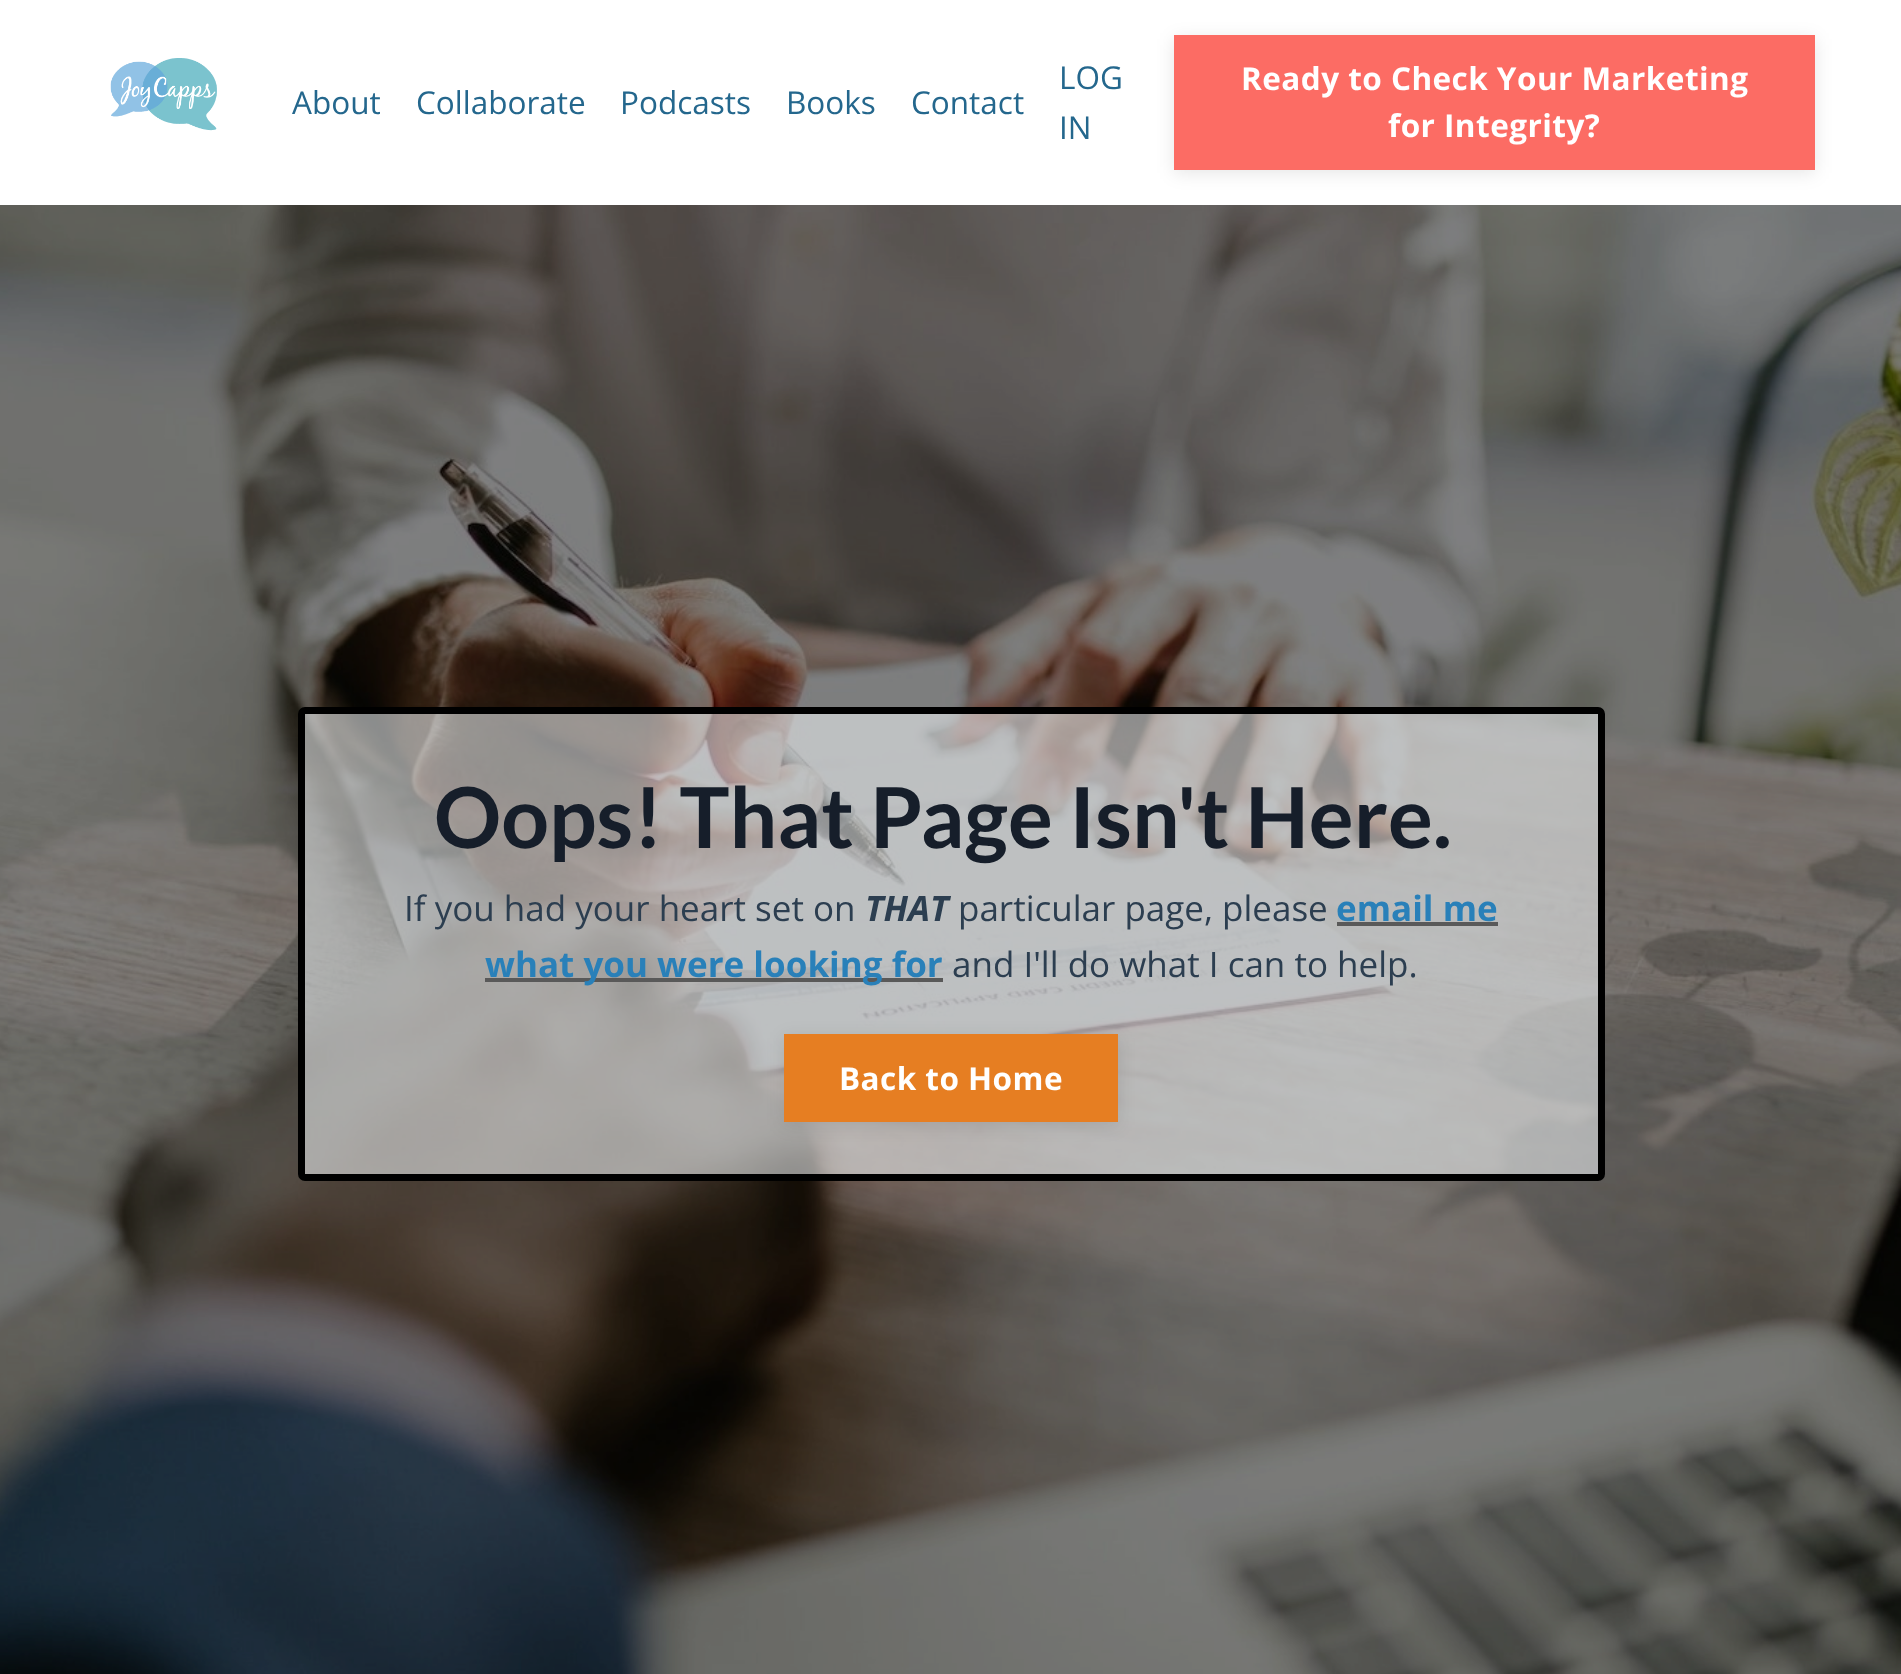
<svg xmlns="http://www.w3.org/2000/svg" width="1901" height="1674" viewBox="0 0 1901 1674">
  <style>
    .t1 { font: 31.5px Open Sans; fill: #24678d; }
    .t2 { font: bold 31.5px Open Sans; letter-spacing: 0.45px; fill: #fff; }
    .t3 { font: bold 84px Lato; fill: #161e2a; }
    .t4 { font: 35px Open Sans; fill: #2c3e50; }
    .t5 { font: italic bold 35px Open Sans; fill: #2c3e50; }
    .t6 { font: bold 35px Open Sans; fill: #2980b9; }
  </style>
  <rect width="100%" height="100%" fill="#fff"/>
  <image x="110" y="58" width="107" height="73" href="images/1.png"/>
  <text x="292" y="114" class="t1">About</text>
  <text x="416" y="114" class="t1">Collaborate</text>
  <text x="620" y="114" class="t1">Podcasts</text>
  <text x="786" y="114" class="t1">Books</text>
  <text x="911" y="114" class="t1">Contact</text>
  <text x="1059" y="89" class="t1">LOG</text>
  <text x="1059" y="139" class="t1">IN</text>
  <rect x="1174" y="39" width="641" height="134" fill="#0000001a" filter="blur(9px)"/>
  <rect x="1174" y="35" width="641" height="135" fill="#fc6c64"/>
  <text x="1241" y="90" class="t2">Ready to Check Your Marketing</text>
  <text x="1388" y="137" class="t2">for Integrity?</text>
  <image x="0" y="205" width="1901" height="1469" href="images/2.png"/>
  <rect x="301.5" y="710.5" width="1300" height="467" rx="3.5" fill="#ecf0f194" stroke="#000" stroke-width="7"/>
  <text x="434" y="848" class="t3">Oops! That Page Isn't Here.</text>
  <text x="404" y="921" class="t4">If you had your heart set on</text>
  <text x="865" y="921" class="t5">THAT</text>
  <text x="958" y="921" class="t4">particular page, please</text>
  <text x="1336" y="921" class="t6">email me</text>
  <rect x="1337" y="922" width="161" height="4" fill="#595959"/>
  <rect x="485" y="978" width="458" height="4" fill="#595959"/>
  <text x="485" y="977" class="t6">what you were looking for</text>
  <text x="952" y="977" class="t4">and I'll do what I can to help.</text>
  <rect x="784" y="1038" width="334" height="87" fill="#0000001a" filter="blur(9px)"/>
  <rect x="784" y="1034" width="334" height="88" fill="#e67e22"/>
  <text x="839" y="1090" class="t2">Back to Home</text>
</svg>
